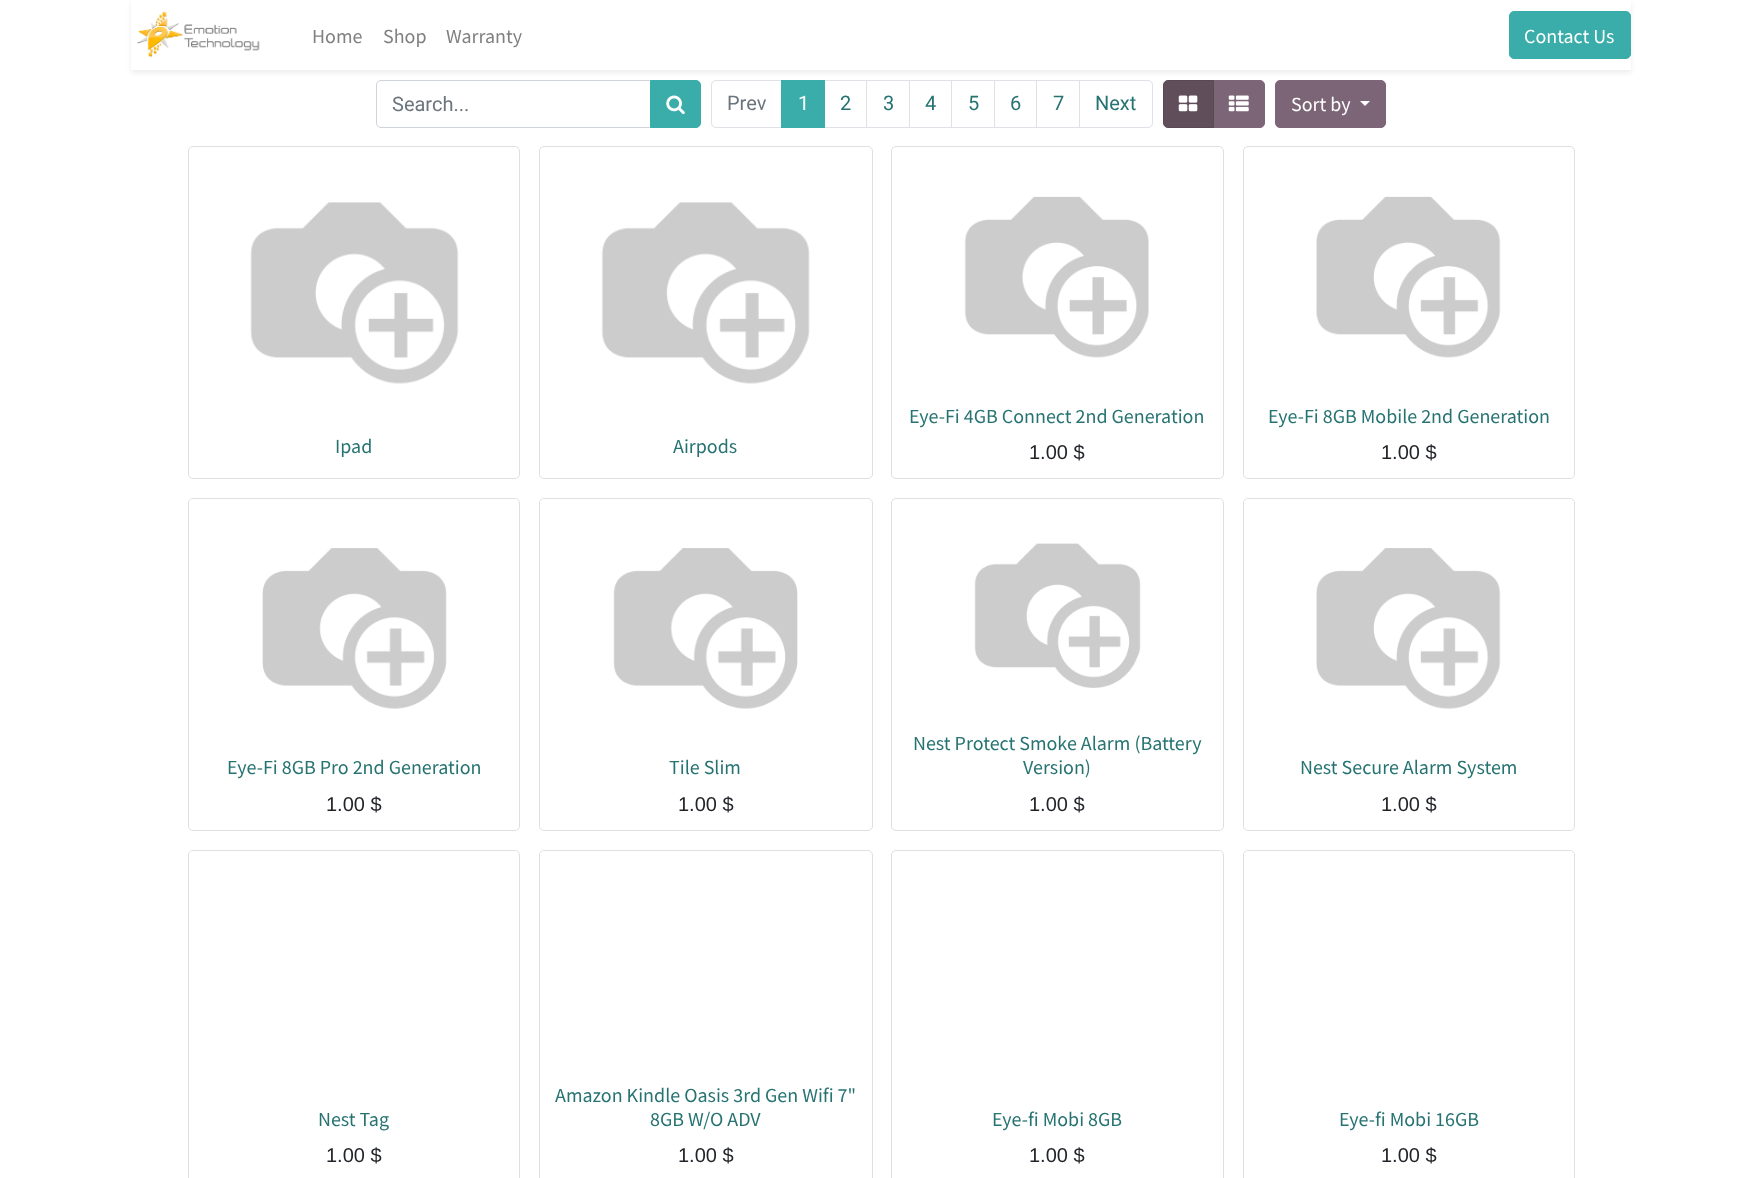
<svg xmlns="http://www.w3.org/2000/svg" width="1762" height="1178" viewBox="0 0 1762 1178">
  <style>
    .t1 { font: 20px Source Sans Pro; fill: #808080; }
    .t2 { font: 20px Source Sans Pro; fill: #fff; }
    .t3 { font: 20px Roboto; fill: #6c757d; }
    .t4 { font: 20px Roboto; fill: #fff; }
    .t5 { font: 20px Roboto; fill: #267372; }
    .t6 { font: 20px Source Sans Pro; fill: #267372; }
    .t7 { font: 20px Liberation Sans; fill: #212529; }
  </style>
  <rect width="100%" height="100%" fill="#fff"/>
  <path d="M381 80.5H650.5V127.5H381C378.5 127.5 376.5 125.5 376.5 123V85C376.5 82.5 378.5 80.5 381 80.5Z" fill="none" stroke="#ced4da"/>
  <path d="M650.5 80.5H696C698.5 80.5 700.5 82.5 700.5 85V123C700.5 125.5 698.5 127.5 696 127.5H650.5Z" fill="#3aadaa" stroke="#3aadaa"/>
  <path d="M716 80.5H782.5V127.5H716C713.5 127.5 711.5 125.5 711.5 123V85C711.5 82.5 713.5 80.5 716 80.5Z" fill="none" stroke="#dee2e6"/>
  <rect x="824.5" y="80.5" width="43" height="47" fill="none" stroke="#dee2e6"/>
  <rect x="781" y="80" width="44" height="48" fill="#3aadaa"/>
  <rect x="867" y="81" width="1" height="46" fill="#fff"/>
  <rect x="866.5" y="80.5" width="43" height="47" fill="none" stroke="#dee2e6"/>
  <rect x="909.5" y="80.5" width="43" height="47" fill="none" stroke="#dee2e6"/>
  <rect x="952" y="81" width="1" height="46" fill="#fff"/>
  <rect x="951.5" y="80.5" width="43" height="47" fill="none" stroke="#dee2e6"/>
  <rect x="994.5" y="80.5" width="43" height="47" fill="none" stroke="#dee2e6"/>
  <rect x="1037" y="81" width="1" height="46" fill="#fff"/>
  <rect x="1036.5" y="80.5" width="43" height="47" fill="none" stroke="#dee2e6"/>
  <path d="M1079.5 80.5H1148C1150.5 80.5 1152.5 82.5 1152.5 85V123C1152.5 125.5 1150.5 127.5 1148 127.5H1079.5Z" fill="#fff" stroke="#dee2e6"/>
  <path d="M1213.5 80.5H1260C1262.5 80.5 1264.5 82.5 1264.5 85V123C1264.5 125.5 1262.5 127.5 1260 127.5H1213.5Z" fill="#7c6576" stroke="#7c6576"/>
  <path d="M1168 80.5H1213.5V127.5H1168C1165.5 127.5 1163.5 125.5 1163.5 123V85C1163.5 82.5 1165.5 80.5 1168 80.5Z" fill="#604e5b" stroke="#594954"/>
  <rect x="1275.5" y="80.5" width="110" height="47" rx="4.5" fill="#7c6576" stroke="#7c6576"/>
  <rect x="131" y="3" width="1500" height="70" fill="#00000012" filter="blur(2.5px)"/>
  <rect x="131" y="0" width="1500" height="70" fill="#fff"/>
  <image x="137" y="11" width="123" height="47" href="images/1.png"/>
  <text x="312" y="43" class="t1">Home</text>
  <text x="383" y="43" class="t1">Shop</text>
  <text x="446" y="43" class="t1">Warranty</text>
  <rect x="1509.5" y="11.5" width="121" height="47" rx="4.5" fill="#3aadaa" stroke="#3aadaa"/>
  <text x="1524" y="43" class="t2">Contact Us</text>
  <text x="392" y="111" class="t3">Search...</text>
  <image x="666" y="95" width="19" height="20" href="images/2.png"/>
  <text x="727" y="110" class="t3">Prev</text>
  <text x="798" y="110" class="t4">1</text>
  <text x="840" y="110" class="t5">2</text>
  <text x="883" y="110" class="t5">3</text>
  <text x="925" y="110" class="t5">4</text>
  <text x="968" y="110" class="t5">5</text>
  <text x="1010" y="110" class="t5">6</text>
  <text x="1053" y="110" class="t5">7</text>
  <text x="1095" y="110" class="t5">Next</text>
  <image x="1178" y="95" width="20" height="17" href="images/3.png"/>
  <image x="1228" y="95" width="21" height="17" href="images/4.png"/>
  <text x="1291" y="111" class="t2">Sort by</text>
  <path d="M1360 101H1370L1365 106Z" fill="#fff"/>
  <rect x="188.5" y="146.5" width="331" height="332" rx="4.5" fill="none" stroke="#dfdfdf"/>
  <image x="250" y="202" width="209" height="182" href="images/5.png"/>
  <path d="M189 424H519V474C519 476 517 478 515 478H193C191 478 189 476 189 474Z" fill="#ffffffe6"/>
  <text x="335" y="453" class="t6">Ipad</text>
  <rect x="539.5" y="146.5" width="333" height="332" rx="4.5" fill="none" stroke="#dfdfdf"/>
  <image x="601" y="202" width="209" height="182" href="images/6.png"/>
  <path d="M540 424H871V474C871 476 869 478 867 478H544C542 478 540 476 540 474Z" fill="#ffffffe6"/>
  <text x="673" y="453" class="t6">Airpods</text>
  <rect x="891.5" y="146.5" width="332" height="332" rx="4.5" fill="none" stroke="#dfdfdf"/>
  <image x="964" y="196" width="185" height="162" href="images/7.png"/>
  <path d="M893 394H1223V474C1223 476 1221 478 1219 478H897C895 478 893 476 893 474Z" fill="#ffffffe6"/>
  <text x="909" y="423" class="t6">Eye-Fi 4GB Connect 2nd Generation</text>
  <text x="1029" y="459" class="t7">1.00 $</text>
  <rect x="1243.5" y="146.5" width="331" height="332" rx="4.5" fill="none" stroke="#dfdfdf"/>
  <image x="1316" y="196" width="185" height="162" href="images/8.png"/>
  <path d="M1244 394H1574V474C1574 476 1572 478 1570 478H1248C1246 478 1244 476 1244 474Z" fill="#ffffffe6"/>
  <text x="1268" y="423" class="t6">Eye-Fi 8GB Mobile 2nd Generation</text>
  <text x="1381" y="459" class="t7">1.00 $</text>
  <rect x="188.5" y="498.5" width="331" height="332" rx="4.5" fill="none" stroke="#dfdfdf"/>
  <path d="M193 499H515C517 499 519 501 519 503V745H189V503C189 501 191 499 193 499Z" fill="#ffffffe6"/>
  <image x="262" y="548" width="185" height="161" href="images/9.png"/>
  <path d="M189 745H519V826C519 828 517 830 515 830H193C191 830 189 828 189 826Z" fill="#ffffffe6"/>
  <text x="227" y="774" class="t6">Eye-Fi 8GB Pro 2nd Generation</text>
  <text x="326" y="811" class="t7">1.00 $</text>
  <rect x="539.5" y="498.5" width="333" height="332" rx="4.5" fill="none" stroke="#dfdfdf"/>
  <path d="M544 499H867C869 499 871 501 871 503V745H540V503C540 501 542 499 544 499Z" fill="#ffffffe6"/>
  <image x="613" y="548" width="185" height="161" href="images/10.png"/>
  <path d="M540 745H871V826C871 828 869 830 867 830H544C542 830 540 828 540 826Z" fill="#ffffffe6"/>
  <text x="669" y="774" class="t6">Tile Slim</text>
  <text x="678" y="811" class="t7">1.00 $</text>
  <rect x="891.5" y="498.5" width="332" height="332" rx="4.5" fill="none" stroke="#dfdfdf"/>
  <path d="M897 499H1219C1221 499 1223 501 1223 503V721H893V503C893 501 895 499 897 499Z" fill="#ffffffe6"/>
  <image x="974" y="543" width="167" height="145" href="images/11.png"/>
  <path d="M893 721H1223V826C1223 828 1221 830 1219 830H897C895 830 893 828 893 826Z" fill="#ffffffe6"/>
  <text x="913" y="750" class="t6">Nest Protect Smoke Alarm (Battery</text>
  <text x="1023" y="774" class="t6">Version)</text>
  <text x="1029" y="811" class="t7">1.00 $</text>
  <rect x="1243.5" y="498.5" width="331" height="332" rx="4.5" fill="none" stroke="#dfdfdf"/>
  <path d="M1248 499H1570C1572 499 1574 501 1574 503V745H1244V503C1244 501 1246 499 1248 499Z" fill="#ffffffe6"/>
  <image x="1316" y="548" width="185" height="161" href="images/12.png"/>
  <path d="M1244 745H1574V826C1574 828 1572 830 1570 830H1248C1246 830 1244 828 1244 826Z" fill="#ffffffe6"/>
  <text x="1300" y="774" class="t6">Nest Secure Alarm System</text>
  <text x="1381" y="811" class="t7">1.00 $</text>
  <rect x="188.5" y="850.5" width="331" height="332" rx="4.5" fill="none" stroke="#dfdfdf"/>
  <path d="M193 851H515C517 851 519 853 519 855V1098H189V855C189 853 191 851 193 851Z" fill="#ffffffe6"/>
  <text x="318" y="1126" class="t6">Nest Tag</text>
  <text x="326" y="1162" class="t7">1.00 $</text>
  <rect x="539.5" y="850.5" width="333" height="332" rx="4.5" fill="none" stroke="#dfdfdf"/>
  <path d="M544 851H867C869 851 871 853 871 855V1073H540V855C540 853 542 851 544 851Z" fill="#ffffffe6"/>
  <text x="555" y="1102" class="t6">Amazon Kindle Oasis 3rd Gen Wifi 7"</text>
  <text x="650" y="1126" class="t6">8GB W/O ADV</text>
  <text x="678" y="1162" class="t7">1.00 $</text>
  <rect x="891.5" y="850.5" width="332" height="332" rx="4.5" fill="none" stroke="#dfdfdf"/>
  <path d="M897 851H1219C1221 851 1223 853 1223 855V1098H893V855C893 853 895 851 897 851Z" fill="#ffffffe6"/>
  <text x="992" y="1126" class="t6">Eye-fi Mobi 8GB</text>
  <text x="1029" y="1162" class="t7">1.00 $</text>
  <rect x="1243.5" y="850.5" width="331" height="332" rx="4.5" fill="none" stroke="#dfdfdf"/>
  <path d="M1248 851H1570C1572 851 1574 853 1574 855V1098H1244V855C1244 853 1246 851 1248 851Z" fill="#ffffffe6"/>
  <text x="1339" y="1126" class="t6">Eye-fi Mobi 16GB</text>
  <text x="1381" y="1162" class="t7">1.00 $</text>
</svg>
